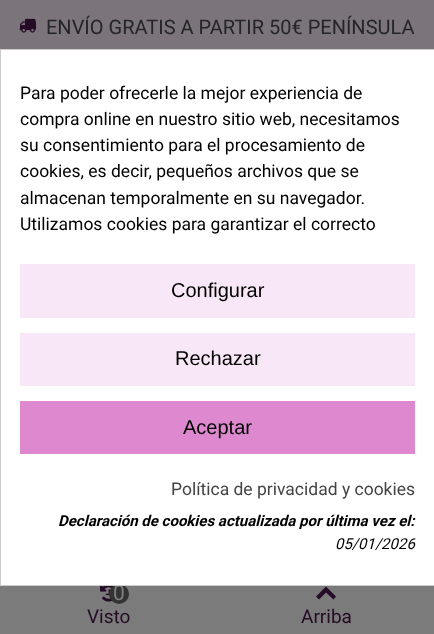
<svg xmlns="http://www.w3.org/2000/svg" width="434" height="634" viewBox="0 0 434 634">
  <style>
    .t1 { font: 20px Roboto; fill: #252525; }
    .t2 { font: 21px Roboto; fill: #808080; }
    .t3 { font: 19px Roboto; fill: #260b26; }
    .t4 { font: 17.5px Roboto; fill: #000; }
    .t5 { font: 20px Liberation Sans; fill: #000; }
    .t6 { font: 17.5px Roboto; fill: #444; }
    .t7 { font: italic bold 15px Roboto; fill: #000; }
    .t8 { font: italic 15px Roboto; fill: #000; }
  </style>
  <rect width="100%" height="100%" fill="#7c747b"/>
  <image x="19" y="18" width="18" height="15" href="images/1.png"/>
  <text x="46" y="34" class="t1">ENVÍO GRATIS A PARTIR 50€ PENÍNSULA</text>
  <rect x="0" y="586" width="434" height="48" fill="#7b7b7b"/>
  <image x="100" y="586" width="13" height="16" href="images/2.png"/>
  <circle cx="119" cy="594" r="10" fill="#333"/>
  <text x="113" y="600" class="t2">0</text>
  <text x="87" y="623" class="t3">Visto</text>
  <path d="M316 596.5L326 586.5L336 596.5L333.5 599.5L326 592.5L319 599.5Z" fill="#260b26"/>
  <text x="301" y="623" class="t3">Arriba</text>
  <rect x="0.5" y="49.5" width="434" height="536" fill="#fff" stroke="#ccc"/>
  <text x="20" y="99" class="t4">Para poder ofrecerle la mejor experiencia de</text>
  <text x="20" y="125" class="t4">compra online en nuestro sitio web, necesitamos</text>
  <text x="20" y="151" class="t4">su consentimiento para el procesamiento de</text>
  <text x="20" y="177" class="t4">cookies, es decir, pequeños archivos que se</text>
  <text x="20" y="204" class="t4">almacenan temporalmente en su navegador.</text>
  <text x="20" y="230" class="t4">Utilizamos cookies para garantizar el correcto</text>
  <rect x="20" y="264" width="395" height="54" fill="#f8e7f6"/>
  <text x="171" y="297" class="t5">Configurar</text>
  <rect x="20" y="333" width="395" height="53" fill="#f8e7f6"/>
  <text x="175" y="365" class="t5">Rechazar</text>
  <rect x="20" y="401" width="395" height="53" fill="#dd88cf"/>
  <text x="183" y="434" class="t5">Aceptar</text>
  <text x="171" y="495" class="t6">Política de privacidad y cookies</text>
  <text x="58" y="526" class="t7">Declaración de cookies actualizada por última vez el:</text>
  <text x="335" y="549" class="t8">05/01/2026</text>
</svg>
